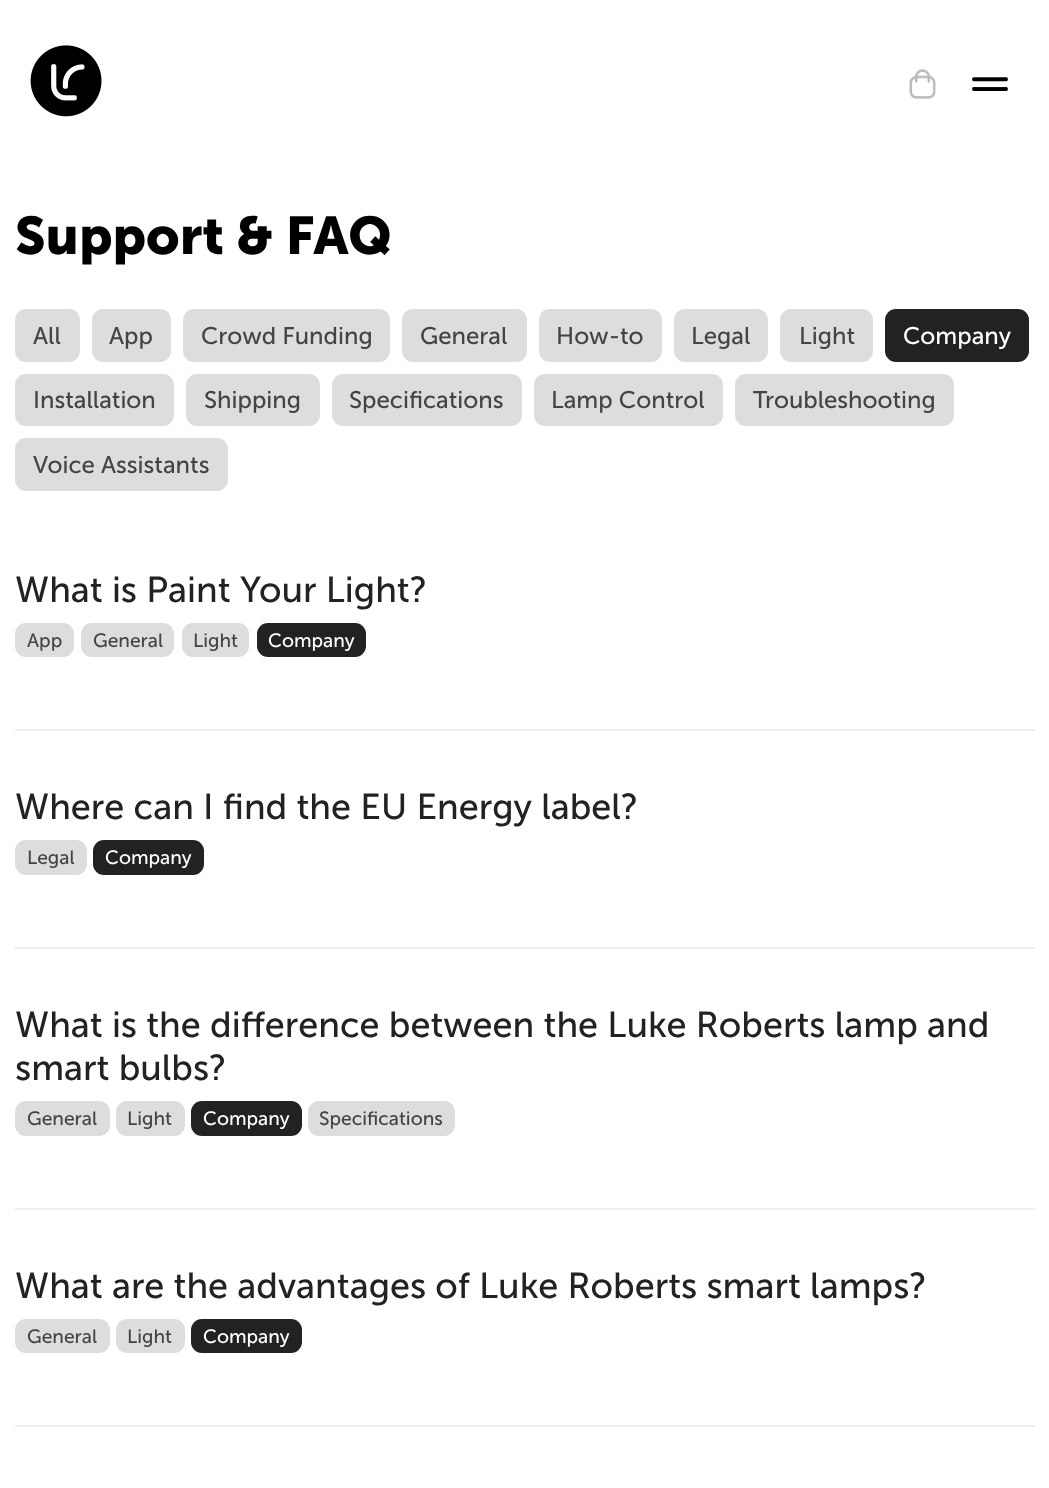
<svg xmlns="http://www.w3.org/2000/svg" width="1049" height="1488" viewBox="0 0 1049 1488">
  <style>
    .t1 { font: bold 52.75px Museo Sans; fill: #000; }
    .t2 { font: 24px Museo Sans; fill: #444; }
    .t3 { font: 24px Museo Sans; fill: #fff; }
    .t4 { font: 36px Museo Sans; fill: #222; }
    .t5 { font: 19.25px Museo Sans; fill: #444; }
    .t6 { font: 19.25px Museo Sans; fill: #fff; }
  </style>
  <rect width="100%" height="100%" fill="#fff"/>
  <image x="30" y="45" width="72" height="72" href="images/1.png"/>
  <image x="909" y="69" width="27" height="30" href="images/2.png"/>
  <image x="972" y="77" width="36" height="14" href="images/3.png"/>
  <text x="15" y="254" class="t1">Support &amp; FAQ</text>
  <rect x="15" y="309" width="65" height="53" rx="11" fill="#ddd"/>
  <text x="33" y="344" class="t2">All</text>
  <rect x="92" y="309" width="79" height="53" rx="11" fill="#ddd"/>
  <text x="109" y="344" class="t2">App</text>
  <rect x="183" y="309" width="207" height="53" rx="11" fill="#ddd"/>
  <text x="201" y="344" class="t2">Crowd Funding</text>
  <rect x="402" y="309" width="125" height="53" rx="11" fill="#ddd"/>
  <text x="420" y="344" class="t2">General</text>
  <rect x="539" y="309" width="123" height="53" rx="11" fill="#ddd"/>
  <text x="556" y="344" class="t2">How-to</text>
  <rect x="674" y="309" width="94" height="53" rx="11" fill="#ddd"/>
  <text x="691" y="344" class="t2">Legal</text>
  <rect x="780" y="309" width="93" height="53" rx="11" fill="#ddd"/>
  <text x="799" y="344" class="t2">Light</text>
  <rect x="885" y="309" width="144" height="53" rx="11" fill="#222"/>
  <text x="903" y="344" class="t3">Company</text>
  <rect x="15" y="374" width="159" height="52" rx="11" fill="#ddd"/>
  <text x="33" y="408" class="t2">Installation</text>
  <rect x="186" y="374" width="134" height="52" rx="11" fill="#ddd"/>
  <text x="204" y="408" class="t2">Shipping</text>
  <rect x="332" y="374" width="190" height="52" rx="11" fill="#ddd"/>
  <text x="349" y="408" class="t2">Specifications</text>
  <rect x="534" y="374" width="189" height="52" rx="11" fill="#ddd"/>
  <text x="551" y="408" class="t2">Lamp Control</text>
  <rect x="735" y="374" width="219" height="52" rx="11" fill="#ddd"/>
  <text x="753" y="408" class="t2">Troubleshooting</text>
  <rect x="15" y="438" width="213" height="53" rx="11" fill="#ddd"/>
  <text x="33" y="473" class="t2">Voice Assistants</text>
  <rect x="15" y="729" width="1020" height="2" fill="#eee"/>
  <text x="15" y="602" class="t4">What is Paint Your Light?</text>
  <rect x="15" y="623" width="59" height="34" rx="11" fill="#ddd"/>
  <text x="27" y="647" class="t5">App</text>
  <rect x="81" y="623" width="93" height="34" rx="11" fill="#ddd"/>
  <text x="93" y="647" class="t5">General</text>
  <rect x="182" y="623" width="67" height="34" rx="11" fill="#ddd"/>
  <text x="193" y="647" class="t5">Light</text>
  <rect x="257" y="623" width="109" height="34" rx="11" fill="#222"/>
  <text x="268" y="647" class="t6">Company</text>
  <rect x="15" y="947" width="1020" height="2" fill="#eee"/>
  <text x="15" y="819" class="t4">Where can I find the EU Energy label?</text>
  <rect x="15" y="840" width="72" height="35" rx="11" fill="#ddd"/>
  <text x="27" y="864" class="t5">Legal</text>
  <rect x="93" y="840" width="111" height="35" rx="11" fill="#222"/>
  <text x="105" y="864" class="t6">Company</text>
  <rect x="15" y="1208" width="1020" height="2" fill="#eee"/>
  <text x="15" y="1037" class="t4">What is the difference between the Luke Roberts lamp and</text>
  <text x="15" y="1080" class="t4">smart bulbs?</text>
  <rect x="15" y="1101" width="95" height="35" rx="11" fill="#ddd"/>
  <text x="27" y="1125" class="t5">General</text>
  <rect x="116" y="1101" width="69" height="35" rx="11" fill="#ddd"/>
  <text x="127" y="1125" class="t5">Light</text>
  <rect x="191" y="1101" width="111" height="35" rx="11" fill="#222"/>
  <text x="203" y="1125" class="t6">Company</text>
  <rect x="308" y="1101" width="147" height="35" rx="11" fill="#ddd"/>
  <text x="319" y="1125" class="t5">Specifications</text>
  <rect x="15" y="1425" width="1020" height="2" fill="#eee"/>
  <text x="15" y="1298" class="t4">What are the advantages of Luke Roberts smart lamps?</text>
  <rect x="15" y="1319" width="95" height="34" rx="11" fill="#ddd"/>
  <text x="27" y="1343" class="t5">General</text>
  <rect x="116" y="1319" width="69" height="34" rx="11" fill="#ddd"/>
  <text x="127" y="1343" class="t5">Light</text>
  <rect x="191" y="1319" width="111" height="34" rx="11" fill="#222"/>
  <text x="203" y="1343" class="t6">Company</text>
</svg>
